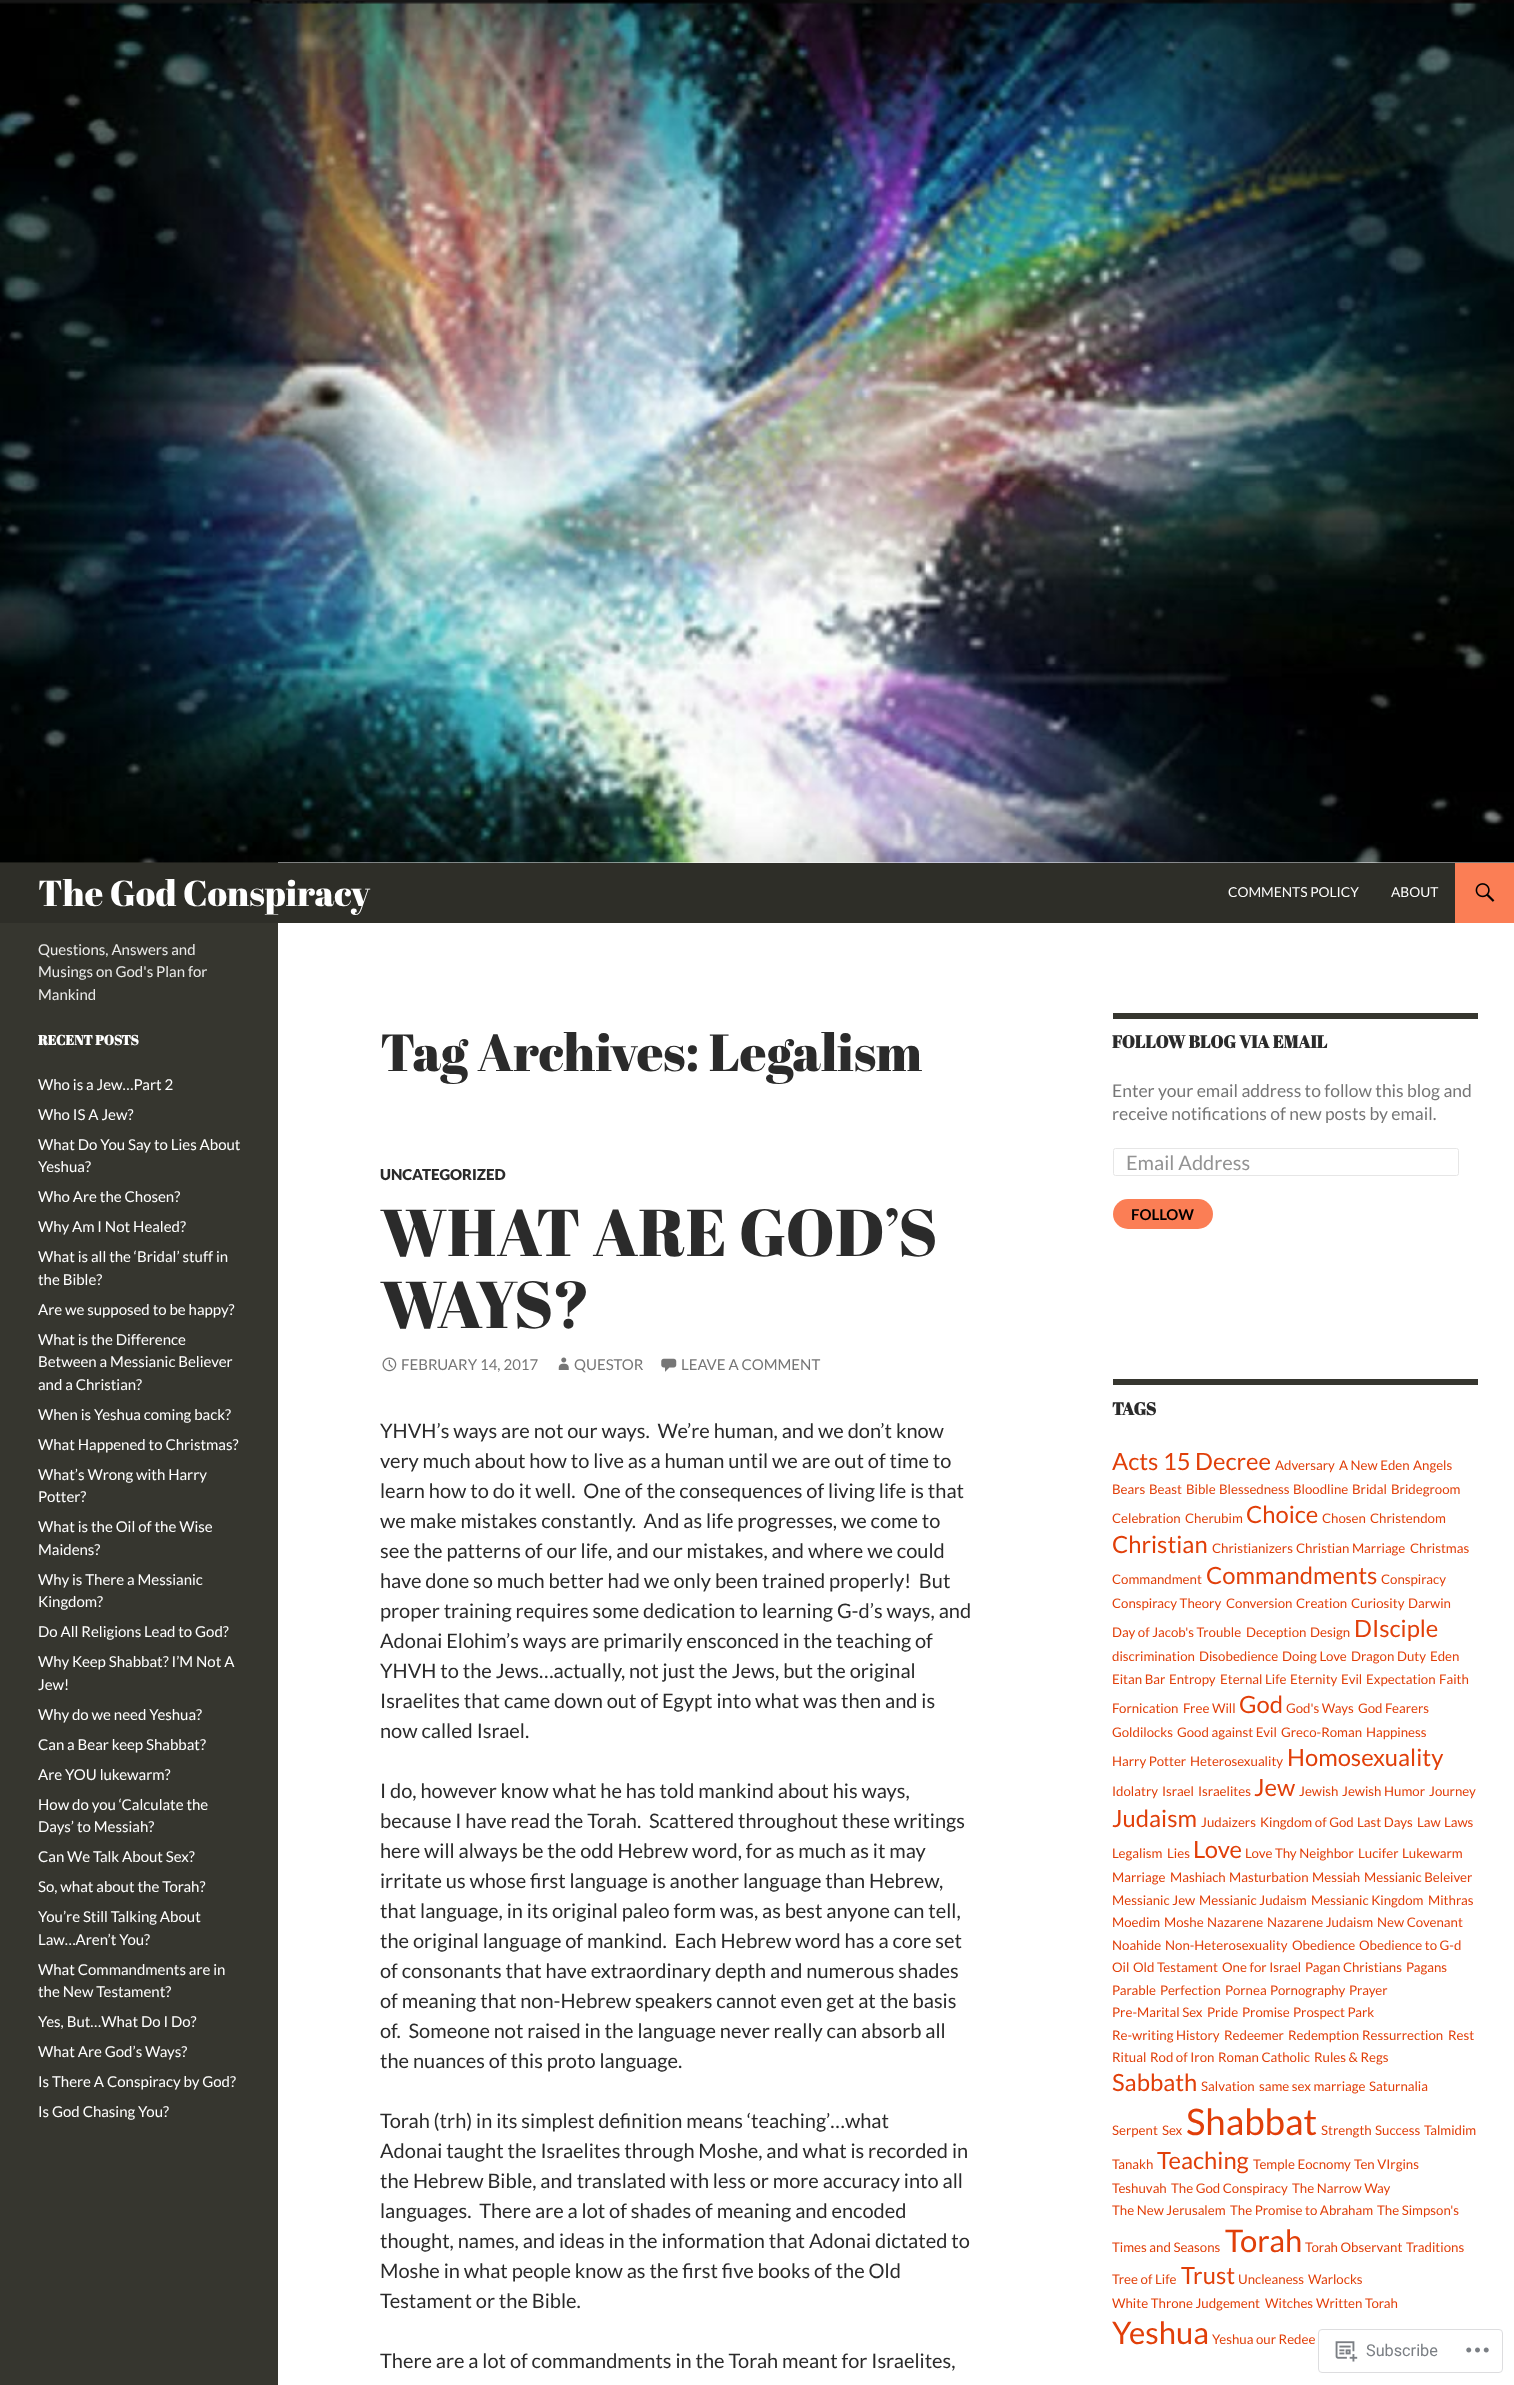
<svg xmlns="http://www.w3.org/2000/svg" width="1514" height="2385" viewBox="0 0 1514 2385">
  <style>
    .t1 { font: 36px Abril Fatface; fill: #fff; }
    .t2 { font: 13.75px Lato; fill: #fff; }
    .t3 { font: 15px Lato; fill: #ebebea; }
    .t4 { font: bold 13.75px Abril Fatface; fill: #fff; }
    .t5 { font: 15px Lato; fill: #fff; }
    .t6 { font: 52px Abril Fatface; fill: #2b2b2b; }
    .t7 { font: 900 15px Lato; fill: #2b2b2b; }
    .t8 { font: 66px Abril Fatface; fill: #2b2b2b; }
    .t9 { font: 15px Lato; fill: #767676; }
    .t10 { font: 20px Lato; fill: #2b2b2b; }
    .t11 { font: bold 17.5px Abril Fatface; fill: #2b2b2b; }
    .t12 { font: 17.5px Lato; fill: #767676; }
    .t13 { font: 20px Lato; fill: #939393; }
    .t14 { font: bold 15px Lato; fill: #000; }
    .t15 { font: 23.75px Lato; fill: #e13f09; }
    .t16 { font: 13.25px Lato; fill: #e13f09; }
    .t17 { font: 36.5px Lato; fill: #e13f09; }
    .t18 { font: 31px Lato; fill: #e13f09; }
    .t19 { font: 16.25px Roboto; fill: #7b7f84; }
  </style>
  <rect width="100%" height="100%" fill="#fff"/>
  <rect x="0" y="862" width="278" height="1523" fill="#36362f"/>
  <image x="0" y="0" width="1514" height="863" href="images/1.png"/>
  <rect x="0" y="863" width="1455" height="60" fill="#2e2e28"/>
  <text x="38" y="906" class="t1">The God Conspiracy</text>
  <text x="1228" y="897" class="t2">COMMENTS POLICY</text>
  <text x="1391" y="897" class="t2">ABOUT</text>
  <rect x="1455" y="863" width="59" height="60" fill="#fb7e55"/>
  <image x="1475" y="883" width="20" height="19" href="images/2.png"/>
  <text x="38" y="955" class="t3">Questions, Answers and</text>
  <text x="38" y="977" class="t3">Musings on God's Plan for</text>
  <text x="38" y="1000" class="t3">Mankind</text>
  <text x="38" y="1045" class="t4">RECENT POSTS</text>
  <text x="38" y="1090" class="t5">Who is a Jew…Part 2</text>
  <text x="38" y="1120" class="t5">Who IS A Jew?</text>
  <text x="38" y="1150" class="t5">What Do You Say to Lies About</text>
  <text x="38" y="1172" class="t5">Yeshua?</text>
  <text x="38" y="1202" class="t5">Who Are the Chosen?</text>
  <text x="38" y="1232" class="t5">Why Am I Not Healed?</text>
  <text x="38" y="1262" class="t5">What is all the ‘Bridal’ stuff in</text>
  <text x="38" y="1285" class="t5">the Bible?</text>
  <text x="38" y="1315" class="t5">Are we supposed to be happy?</text>
  <text x="38" y="1345" class="t5">What is the Difference</text>
  <text x="38" y="1367" class="t5">Between a Messianic Believer</text>
  <text x="38" y="1390" class="t5">and a Christian?</text>
  <text x="38" y="1420" class="t5">When is Yeshua coming back?</text>
  <text x="38" y="1450" class="t5">What Happened to Christmas?</text>
  <text x="38" y="1480" class="t5">What’s Wrong with Harry</text>
  <text x="38" y="1502" class="t5">Potter?</text>
  <text x="38" y="1532" class="t5">What is the Oil of the Wise</text>
  <text x="38" y="1555" class="t5">Maidens?</text>
  <text x="38" y="1585" class="t5">Why is There a Messianic</text>
  <text x="38" y="1607" class="t5">Kingdom?</text>
  <text x="38" y="1637" class="t5">Do All Religions Lead to God?</text>
  <text x="38" y="1667" class="t5">Why Keep Shabbat? I’M Not A</text>
  <text x="38" y="1690" class="t5">Jew!</text>
  <text x="38" y="1720" class="t5">Why do we need Yeshua?</text>
  <text x="38" y="1750" class="t5">Can a Bear keep Shabbat?</text>
  <text x="38" y="1780" class="t5">Are YOU lukewarm?</text>
  <text x="38" y="1810" class="t5">How do you ‘Calculate the</text>
  <text x="38" y="1832" class="t5">Days’ to Messiah?</text>
  <text x="38" y="1862" class="t5">Can We Talk About Sex?</text>
  <text x="38" y="1892" class="t5">So, what about the Torah?</text>
  <text x="38" y="1922" class="t5">You’re Still Talking About</text>
  <text x="38" y="1945" class="t5">Law…Aren’t You?</text>
  <text x="38" y="1975" class="t5">What Commandments are in</text>
  <text x="38" y="1997" class="t5">the New Testament?</text>
  <text x="38" y="2027" class="t5">Yes, But…What Do I Do?</text>
  <text x="38" y="2057" class="t5">What Are God’s Ways?</text>
  <text x="38" y="2087" class="t5">Is There A Conspiracy by God?</text>
  <text x="38" y="2117" class="t5">Is God Chasing You?</text>
  <text x="380" y="1071" class="t6">Tag Archives: Legalism</text>
  <text x="380" y="1180" class="t7">UNCATEGORIZED</text>
  <text x="380" y="1256" class="t8">WHAT ARE GOD’S</text>
  <text x="380" y="1328" class="t8">WAYS?</text>
  <image x="382" y="1357" width="15" height="15" href="images/3.png"/>
  <text x="401" y="1370" class="t9">FEBRUARY 14, 2017</text>
  <image x="558" y="1357" width="11" height="13" href="images/4.png"/>
  <text x="574" y="1370" class="t9">QUESTOR</text>
  <image x="661" y="1358" width="16" height="14" href="images/5.png"/>
  <text x="681" y="1370" class="t9">LEAVE A COMMENT</text>
  <text x="380" y="1438" class="t10" xml:space="preserve">YHVH’s ways are not our ways.  We’re human, and we don’t know</text>
  <text x="380" y="1468" class="t10">very much about how to live as a human until we are out of time to</text>
  <text x="380" y="1498" class="t10" xml:space="preserve">learn how to do it well.  One of the consequences of living life is that</text>
  <text x="380" y="1528" class="t10" xml:space="preserve">we make mistakes constantly.  And as life progresses, we come to</text>
  <text x="380" y="1558" class="t10">see the patterns of our life, and our mistakes, and where we could</text>
  <text x="380" y="1588" class="t10" xml:space="preserve">have done so much better had we only been trained properly!  But</text>
  <text x="380" y="1618" class="t10">proper training requires some dedication to learning G-d’s ways, and</text>
  <text x="380" y="1648" class="t10">Adonai Elohim’s ways are primarily ensconced in the teaching of</text>
  <text x="380" y="1678" class="t10">YHVH to the Jews…actually, not just the Jews, but the original</text>
  <text x="380" y="1708" class="t10">Israelites that came down out of Egypt into what was then and is</text>
  <text x="380" y="1738" class="t10">now called Israel.</text>
  <text x="380" y="1798" class="t10">I do, however know what he has told mankind about his ways,</text>
  <text x="380" y="1828" class="t10" xml:space="preserve">because I have read the Torah.  Scattered throughout these writings</text>
  <text x="380" y="1858" class="t10">here will always be the odd Hebrew word, for as much as it may</text>
  <text x="380" y="1888" class="t10">irritate us whose first language is another language than Hebrew,</text>
  <text x="380" y="1918" class="t10">that language, in its original paleo form was, as best anyone can tell,</text>
  <text x="380" y="1948" class="t10" xml:space="preserve">the original language of mankind.  Each Hebrew word has a core set</text>
  <text x="380" y="1978" class="t10">of consonants that have extraordinary depth and numerous shades</text>
  <text x="380" y="2008" class="t10">of meaning that non-Hebrew speakers cannot even get at the basis</text>
  <text x="380" y="2038" class="t10" xml:space="preserve">of.  Someone not raised in the language never really can absorb all</text>
  <text x="380" y="2068" class="t10">the nuances of this proto language.</text>
  <text x="380" y="2128" class="t10">Torah (trh) in its simplest definition means ‘teaching’…what</text>
  <text x="380" y="2158" class="t10">Adonai taught the Israelites through Moshe, and what is recorded in</text>
  <text x="380" y="2188" class="t10">the Hebrew Bible, and translated with less or more accuracy into all</text>
  <text x="380" y="2218" class="t10" xml:space="preserve">languages.  There are a lot of shades of meaning and encoded</text>
  <text x="380" y="2248" class="t10">thought, names, and ideas in the information that Adonai dictated to</text>
  <text x="380" y="2278" class="t10">Moshe in what people know as the first five books of the Old</text>
  <text x="380" y="2308" class="t10">Testament or the Bible.</text>
  <text x="380" y="2368" class="t10">There are a lot of commandments in the Torah meant for Israelites,</text>
  <rect x="1113" y="1013" width="365" height="6" fill="#36362f"/>
  <text x="1112" y="1048" class="t11">FOLLOW BLOG VIA EMAIL</text>
  <text x="1112" y="1097" class="t12">Enter your email address to follow this blog and</text>
  <text x="1112" y="1120" class="t12">receive notifications of new posts by email.</text>
  <rect x="1113.5" y="1148.5" width="345" height="27" rx="2" fill="none" stroke="#e6e6e6"/>
  <text x="1126" y="1170" class="t13">Email Address</text>
  <rect x="1113" y="1199" width="100" height="30" rx="15" fill="#fb7e55"/>
  <text x="1131" y="1220" class="t14">FOLLOW</text>
  <rect x="1113" y="1379" width="365" height="6" fill="#36362f"/>
  <text x="1112" y="1415" class="t11">TAGS</text>
  <text x="1112" y="1470" class="t15">Acts 15 Decree</text>
  <text x="1275" y="1470" class="t16">Adversary</text>
  <text x="1339" y="1470" class="t16">A New Eden</text>
  <text x="1413" y="1470" class="t16">Angels</text>
  <text x="1112" y="1494" class="t16">Bears</text>
  <text x="1149" y="1494" class="t16">Beast</text>
  <text x="1186" y="1494" class="t16">Bible</text>
  <text x="1219" y="1494" class="t16">Blessedness</text>
  <text x="1293" y="1494" class="t16">Bloodline</text>
  <text x="1352" y="1494" class="t16">Bridal</text>
  <text x="1391" y="1494" class="t16">Bridegroom</text>
  <text x="1112" y="1523" class="t16">Celebration</text>
  <text x="1185" y="1523" class="t16">Cherubim</text>
  <text x="1246" y="1523" class="t15">Choice</text>
  <text x="1322" y="1523" class="t16">Chosen</text>
  <text x="1370" y="1523" class="t16">Christendom</text>
  <text x="1112" y="1553" class="t15">Christian</text>
  <text x="1212" y="1553" class="t16">Christianizers</text>
  <text x="1296" y="1553" class="t16">Christian Marriage</text>
  <text x="1410" y="1553" class="t16">Christmas</text>
  <text x="1112" y="1584" class="t16">Commandment</text>
  <text x="1206" y="1584" class="t15">Commandments</text>
  <text x="1381" y="1584" class="t16">Conspiracy</text>
  <text x="1112" y="1608" class="t16">Conspiracy Theory</text>
  <text x="1226" y="1608" class="t16">Conversion</text>
  <text x="1296" y="1608" class="t16">Creation</text>
  <text x="1351" y="1608" class="t16">Curiosity</text>
  <text x="1408" y="1608" class="t16">Darwin</text>
  <text x="1112" y="1637" class="t16">Day of Jacob's Trouble</text>
  <text x="1246" y="1637" class="t16">Deception</text>
  <text x="1310" y="1637" class="t16">Design</text>
  <text x="1354" y="1637" class="t15">DIsciple</text>
  <text x="1112" y="1661" class="t16">discrimination</text>
  <text x="1199" y="1661" class="t16">Disobedience</text>
  <text x="1282" y="1661" class="t16">Doing Love</text>
  <text x="1351" y="1661" class="t16">Dragon</text>
  <text x="1397" y="1661" class="t16">Duty</text>
  <text x="1430" y="1661" class="t16">Eden</text>
  <text x="1112" y="1684" class="t16">Eitan Bar</text>
  <text x="1169" y="1684" class="t16">Entropy</text>
  <text x="1220" y="1684" class="t16">Eternal Life</text>
  <text x="1290" y="1684" class="t16">Eternity</text>
  <text x="1341" y="1684" class="t16">Evil</text>
  <text x="1366" y="1684" class="t16">Expectation</text>
  <text x="1439" y="1684" class="t16">Faith</text>
  <text x="1112" y="1713" class="t16">Fornication</text>
  <text x="1183" y="1713" class="t16">Free Will</text>
  <text x="1239" y="1713" class="t15">God</text>
  <text x="1286" y="1713" class="t16">God's Ways</text>
  <text x="1358" y="1713" class="t16">God Fearers</text>
  <text x="1112" y="1737" class="t16">Goldilocks</text>
  <text x="1177" y="1737" class="t16">Good against Evil</text>
  <text x="1281" y="1737" class="t16">Greco-Roman</text>
  <text x="1366" y="1737" class="t16">Happiness</text>
  <text x="1112" y="1766" class="t16">Harry Potter</text>
  <text x="1190" y="1766" class="t16">Heterosexuality</text>
  <text x="1287" y="1766" class="t15">Homosexuality</text>
  <text x="1112" y="1796" class="t16">Idolatry</text>
  <text x="1162" y="1796" class="t16">Israel</text>
  <text x="1198" y="1796" class="t16">Israelites</text>
  <text x="1254" y="1796" class="t15">Jew</text>
  <text x="1299" y="1796" class="t16">Jewish</text>
  <text x="1342" y="1796" class="t16">Jewish Humor</text>
  <text x="1429" y="1796" class="t16">Journey</text>
  <text x="1112" y="1827" class="t15">Judaism</text>
  <text x="1201" y="1827" class="t16">Judaizers</text>
  <text x="1260" y="1827" class="t16">Kingdom of God</text>
  <text x="1357" y="1827" class="t16">Last Days</text>
  <text x="1417" y="1827" class="t16">Law</text>
  <text x="1444" y="1827" class="t16">Laws</text>
  <text x="1112" y="1858" class="t16">Legalism</text>
  <text x="1167" y="1858" class="t16">Lies</text>
  <text x="1193" y="1858" class="t15">Love</text>
  <text x="1245" y="1858" class="t16">Love Thy Neighbor</text>
  <text x="1358" y="1858" class="t16">Lucifer</text>
  <text x="1402" y="1858" class="t16">Lukewarm</text>
  <text x="1112" y="1882" class="t16">Marriage</text>
  <text x="1170" y="1882" class="t16">Mashiach</text>
  <text x="1229" y="1882" class="t16">Masturbation</text>
  <text x="1312" y="1882" class="t16">Messiah</text>
  <text x="1364" y="1882" class="t16">Messianic Beleiver</text>
  <text x="1112" y="1905" class="t16">Messianic Jew</text>
  <text x="1199" y="1905" class="t16">Messianic Judaism</text>
  <text x="1311" y="1905" class="t16">Messianic Kingdom</text>
  <text x="1428" y="1905" class="t16">Mithras</text>
  <text x="1112" y="1927" class="t16">Moedim</text>
  <text x="1164" y="1927" class="t16">Moshe</text>
  <text x="1207" y="1927" class="t16">Nazarene</text>
  <text x="1267" y="1927" class="t16">Nazarene Judaism</text>
  <text x="1377" y="1927" class="t16">New Covenant</text>
  <text x="1112" y="1950" class="t16">Noahide</text>
  <text x="1165" y="1950" class="t16">Non-Heterosexuality</text>
  <text x="1292" y="1950" class="t16">Obedience</text>
  <text x="1359" y="1950" class="t16">Obedience to G-d</text>
  <text x="1112" y="1972" class="t16">Oil</text>
  <text x="1133" y="1972" class="t16">Old Testament</text>
  <text x="1222" y="1972" class="t16">One for Israel</text>
  <text x="1305" y="1972" class="t16">Pagan Christians</text>
  <text x="1406" y="1972" class="t16">Pagans</text>
  <text x="1112" y="1995" class="t16">Parable</text>
  <text x="1160" y="1995" class="t16">Perfection</text>
  <text x="1225" y="1995" class="t16">Pornea</text>
  <text x="1270" y="1995" class="t16">Pornography</text>
  <text x="1349" y="1995" class="t16">Prayer</text>
  <text x="1112" y="2017" class="t16">Pre-Marital Sex</text>
  <text x="1207" y="2017" class="t16">Pride</text>
  <text x="1242" y="2017" class="t16">Promise</text>
  <text x="1293" y="2017" class="t16">Prospect Park</text>
  <text x="1112" y="2040" class="t16">Re-writing History</text>
  <text x="1224" y="2040" class="t16">Redeemer</text>
  <text x="1288" y="2040" class="t16">Redemption</text>
  <text x="1362" y="2040" class="t16">Ressurrection</text>
  <text x="1448" y="2040" class="t16">Rest</text>
  <text x="1112" y="2062" class="t16">Ritual</text>
  <text x="1150" y="2062" class="t16">Rod of Iron</text>
  <text x="1218" y="2062" class="t16">Roman Catholic</text>
  <text x="1314" y="2062" class="t16">Rules &amp; Regs</text>
  <text x="1112" y="2091" class="t15">Sabbath</text>
  <text x="1201" y="2091" class="t16">Salvation</text>
  <text x="1259" y="2091" class="t16">same sex marriage</text>
  <text x="1369" y="2091" class="t16">Saturnalia</text>
  <text x="1112" y="2135" class="t16">Serpent</text>
  <text x="1162" y="2135" class="t16">Sex</text>
  <text x="1186" y="2135" class="t17">Shabbat</text>
  <text x="1321" y="2135" class="t16">Strength</text>
  <text x="1375" y="2135" class="t16">Success</text>
  <text x="1424" y="2135" class="t16">Talmidim</text>
  <text x="1112" y="2169" class="t16">Tanakh</text>
  <text x="1157" y="2169" class="t15">Teaching</text>
  <text x="1253" y="2169" class="t16">Temple Eocnomy</text>
  <text x="1354" y="2169" class="t16">Ten VIrgins</text>
  <text x="1112" y="2193" class="t16">Teshuvah</text>
  <text x="1171" y="2193" class="t16">The God Conspiracy</text>
  <text x="1292" y="2193" class="t16">The Narrow Way</text>
  <text x="1112" y="2215" class="t16">The New Jerusalem</text>
  <text x="1230" y="2215" class="t16">The Promise to Abraham</text>
  <text x="1377" y="2215" class="t16">The Simpson's</text>
  <text x="1112" y="2252" class="t16">Times and Seasons</text>
  <text x="1225" y="2252" class="t18">Torah</text>
  <text x="1305" y="2252" class="t16">Torah Observant</text>
  <text x="1406" y="2252" class="t16">Traditions</text>
  <text x="1112" y="2284" class="t16">Tree of Life</text>
  <text x="1181" y="2284" class="t15">Trust</text>
  <text x="1238" y="2284" class="t16">Uncleaness</text>
  <text x="1308" y="2284" class="t16">Warlocks</text>
  <text x="1112" y="2308" class="t16">White Throne Judgement</text>
  <text x="1265" y="2308" class="t16">Witches</text>
  <text x="1316" y="2308" class="t16">Written Torah</text>
  <text x="1112" y="2344" class="t18">Yeshua</text>
  <text x="1212" y="2344" class="t16">Yeshua our Redee</text>
  <rect x="1318.5" y="2329.5" width="184" height="43" rx="3.5" fill="none" stroke="#dcdcdefa"/>
  <image x="1335" y="2341" width="23" height="21" href="images/6.png"/>
  <text x="1366" y="2356" class="t19">Subscribe</text>
  <image x="1466" y="2347" width="23" height="6" href="images/7.png"/>
</svg>
